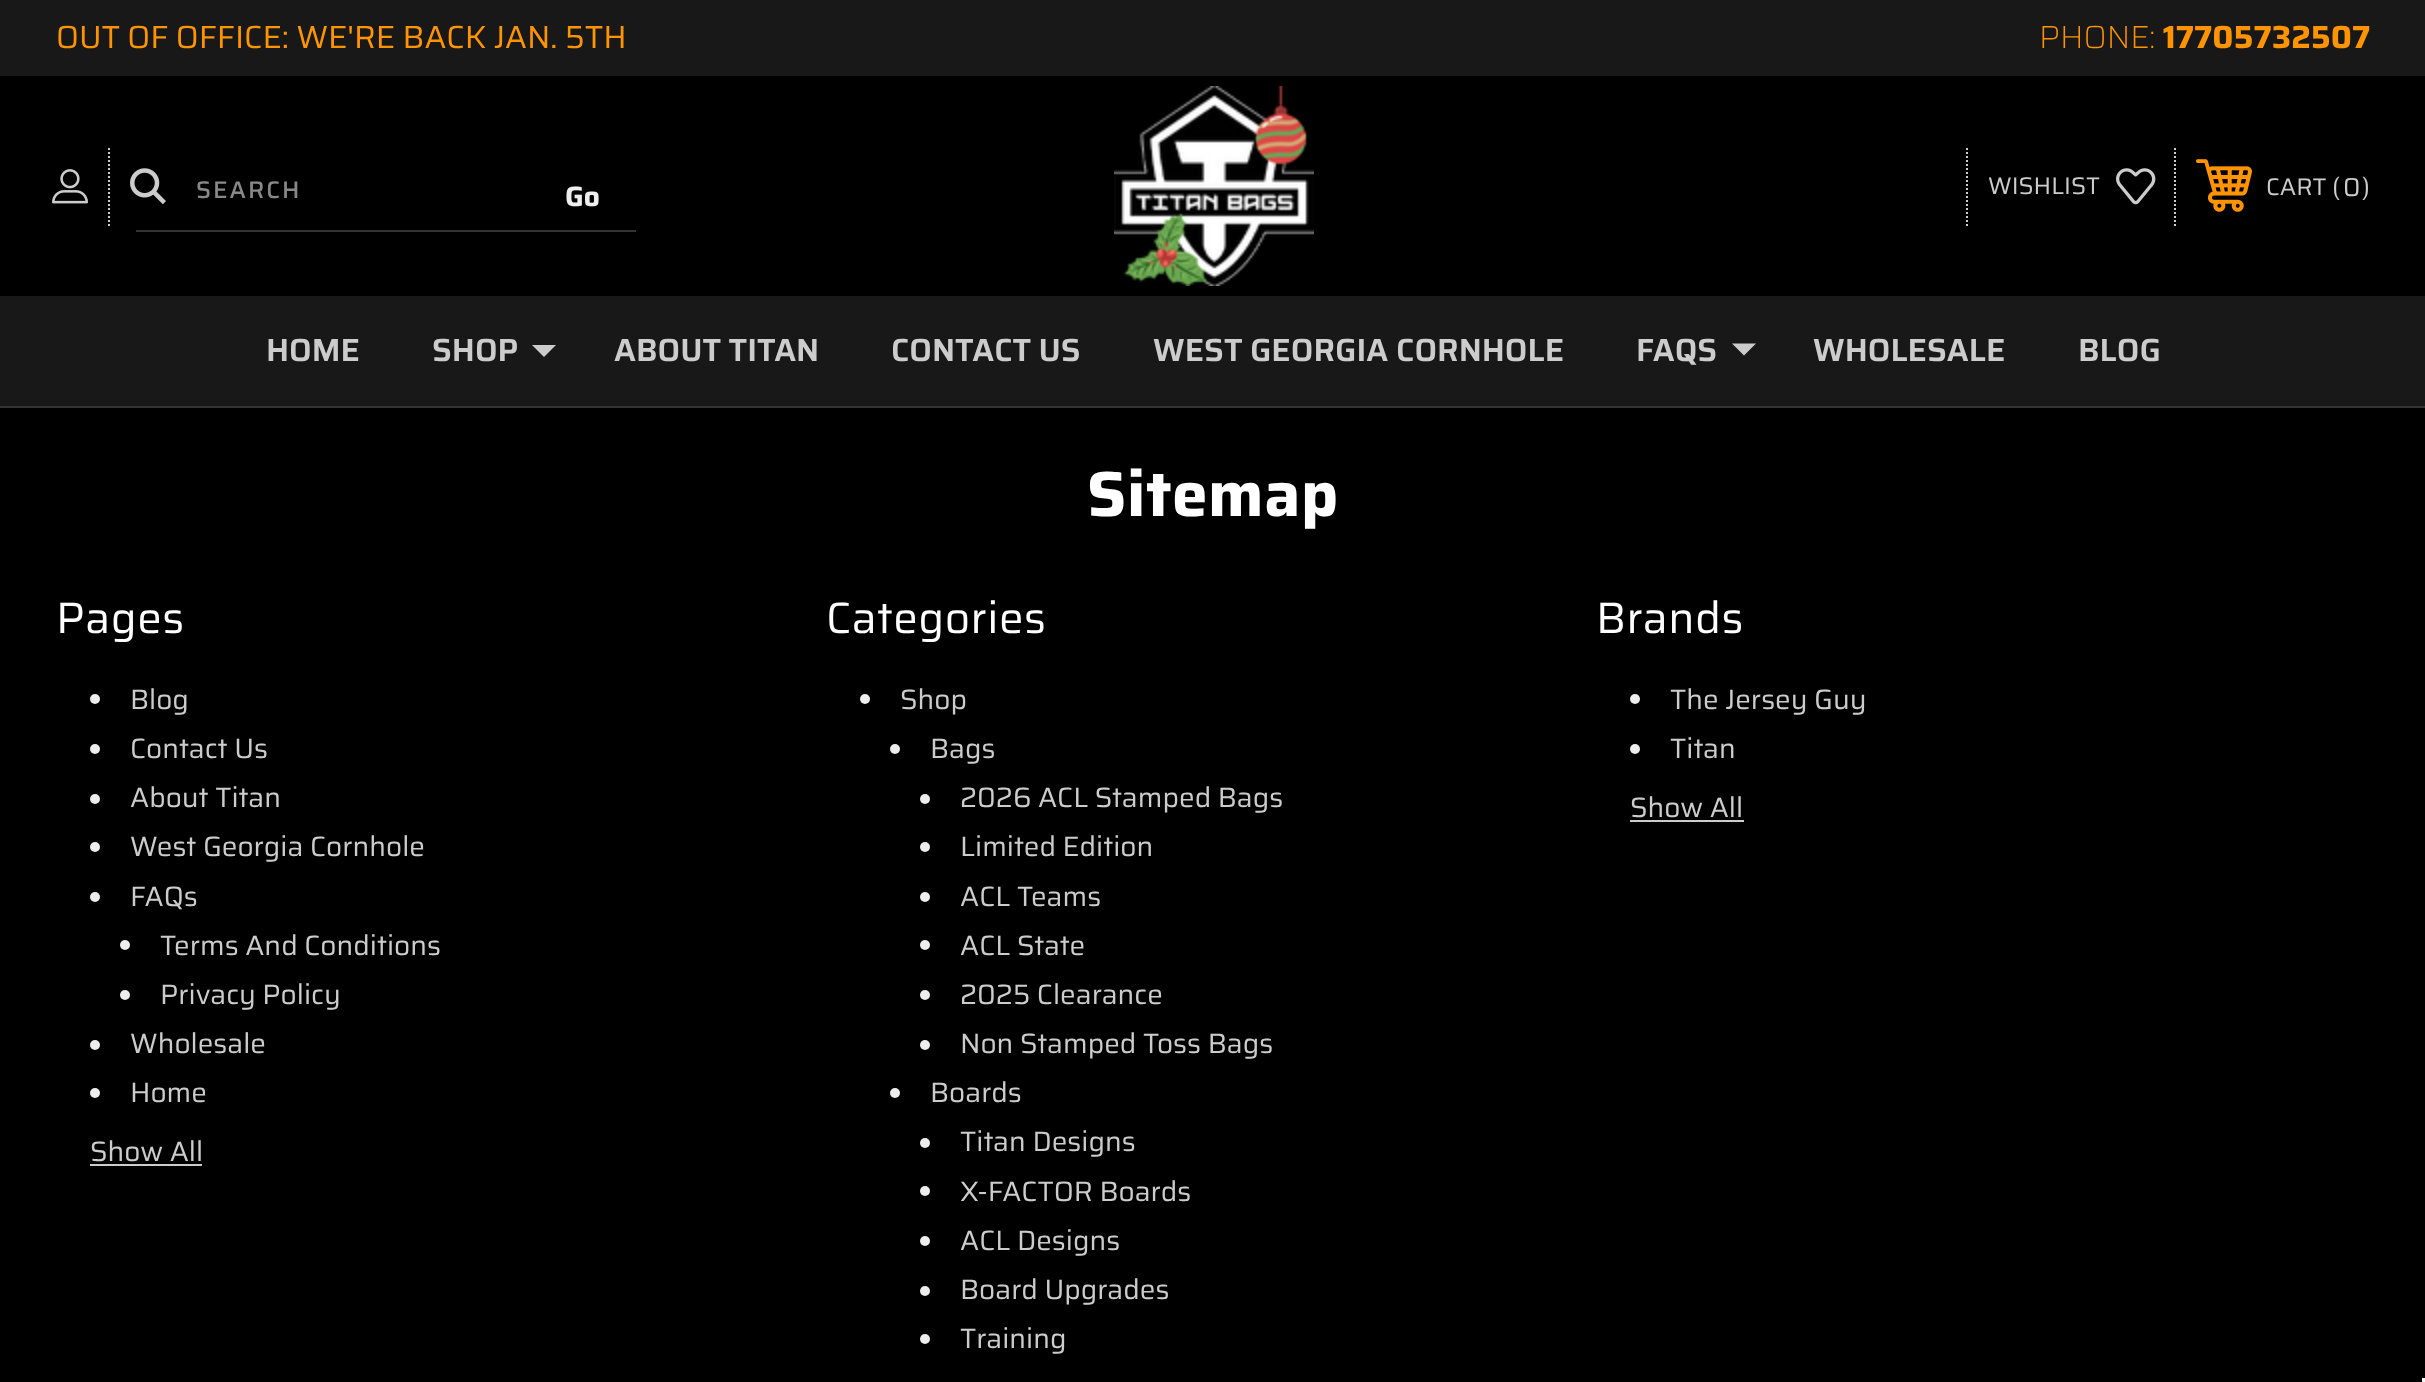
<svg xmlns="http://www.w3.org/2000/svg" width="2425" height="1382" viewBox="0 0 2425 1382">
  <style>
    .t1 { font: 32px Saira; fill: #ff9400; }
    .t2 { font: 200 32px Saira; fill: #ff9400; }
    .t3 { font: bold 32px Saira; fill: #ff9400; }
    .t4 { font: 500 24px Saira; letter-spacing: 2px; fill: #888; }
    .t5 { font: bold 28px Saira; fill: #eee; }
    .t6 { font: 24px Saira; fill: #ccc; }
    .t7 { font: 26px Saira; fill: #ccc; }
    .t8 { font: 600 32px Saira; fill: #ccc; }
    .t9 { font: bold 64px Saira; letter-spacing: 0.5px; fill: #fff; }
    .t10 { font: 44px Saira; letter-spacing: 0.5px; fill: #fff; }
    .t11 { font: 28px Saira; fill: #ccc; }
  </style>
  <rect width="100%" height="100%" fill="#000"/>
  <rect x="0" y="0" width="2425" height="76" fill="#181818"/>
  <text x="56" y="48" class="t1">OUT OF OFFICE: WE'RE BACK JAN. 5TH</text>
  <text x="2039" y="48" class="t2">PHONE:</text>
  <text x="2163" y="48" class="t3">17705732507</text>
  <rect x="0" y="406" width="2425" height="2" fill="#333"/>
  <image x="52" y="169" width="36" height="35" href="images/1.png"/>
  <path d="M109 148V226" fill="none" stroke="#ccc" stroke-width="2" stroke-dasharray="2 2"/>
  <image x="130" y="168" width="36" height="37" href="images/2.png"/>
  <rect x="136" y="230" width="500" height="2" fill="#333"/>
  <text x="196" y="198" class="t4">SEARCH</text>
  <text x="565" y="206" class="t5">Go</text>
  <image x="1114" y="86" width="200" height="200" href="images/3.png"/>
  <path d="M2175 148V226" fill="none" stroke="#ccc" stroke-width="2" stroke-dasharray="2 2"/>
  <path d="M1967 148V226" fill="none" stroke="#ccc" stroke-width="2" stroke-dasharray="2 2"/>
  <text x="1988" y="194" class="t6">WISHLIST</text>
  <image x="2116" y="168" width="40" height="37" href="images/4.png"/>
  <image x="2196" y="159" width="56" height="53" href="images/5.png"/>
  <text x="2266" y="195" class="t6">CART</text>
  <text x="2332" y="196" class="t7">(</text>
  <text x="2343" y="196" class="t7">0</text>
  <text x="2362" y="196" class="t7">)</text>
  <rect x="0" y="296" width="2425" height="110" fill="#181818"/>
  <text x="266" y="361" class="t8">HOME</text>
  <text x="432" y="361" class="t8">SHOP</text>
  <path d="M532 345L544 357L556 345Z" fill="#ccc"/>
  <text x="614" y="361" class="t8">ABOUT TITAN</text>
  <text x="891" y="361" class="t8">CONTACT US</text>
  <text x="1153" y="361" class="t8">WEST GEORGIA CORNHOLE</text>
  <text x="1636" y="361" class="t8">FAQS</text>
  <path d="M1732 343.5L1744 355.5L1756 343.5Z" fill="#ccc"/>
  <text x="1813" y="361" class="t8">WHOLESALE</text>
  <text x="2078" y="361" class="t8">BLOG</text>
  <text x="1087" y="516" class="t9">Sitemap</text>
  <text x="56" y="633" class="t10">Pages</text>
  <circle cx="95" cy="699" r="5" fill="#eee"/>
  <text x="130" y="709" class="t11">Blog</text>
  <circle cx="95" cy="749" r="5" fill="#eee"/>
  <text x="130" y="758" class="t11">Contact Us</text>
  <circle cx="95" cy="799" r="5" fill="#eee"/>
  <text x="130" y="807" class="t11">About Titan</text>
  <circle cx="95" cy="847" r="5" fill="#eee"/>
  <text x="130" y="856" class="t11">West Georgia Cornhole</text>
  <circle cx="95" cy="897" r="5" fill="#eee"/>
  <text x="130" y="906" class="t11">FAQs</text>
  <circle cx="125" cy="945" r="5" fill="#eee"/>
  <text x="160" y="955" class="t11">Terms And Conditions</text>
  <circle cx="125" cy="995" r="5" fill="#eee"/>
  <text x="160" y="1004" class="t11">Privacy Policy</text>
  <circle cx="95" cy="1045" r="5" fill="#eee"/>
  <text x="130" y="1053" class="t11">Wholesale</text>
  <circle cx="95" cy="1093" r="5" fill="#eee"/>
  <text x="130" y="1102" class="t11">Home</text>
  <text x="90" y="1161" class="t11">Show All</text>
  <rect x="90" y="1164" width="112" height="2" fill="#ccc"/>
  <text x="826" y="633" class="t10">Categories</text>
  <circle cx="865" cy="699" r="5" fill="#eee"/>
  <text x="900" y="709" class="t11">Shop</text>
  <circle cx="895" cy="749" r="5" fill="#eee"/>
  <text x="930" y="758" class="t11">Bags</text>
  <circle cx="925" cy="799" r="5" fill="#eee"/>
  <text x="960" y="807" class="t11">2026 ACL Stamped Bags</text>
  <circle cx="925" cy="847" r="5" fill="#eee"/>
  <text x="960" y="856" class="t11">Limited Edition</text>
  <circle cx="925" cy="897" r="5" fill="#eee"/>
  <text x="960" y="906" class="t11">ACL Teams</text>
  <circle cx="925" cy="945" r="5" fill="#eee"/>
  <text x="960" y="955" class="t11">ACL State</text>
  <circle cx="925" cy="995" r="5" fill="#eee"/>
  <text x="960" y="1004" class="t11">2025 Clearance</text>
  <circle cx="925" cy="1045" r="5" fill="#eee"/>
  <text x="960" y="1053" class="t11">Non Stamped Toss Bags</text>
  <circle cx="895" cy="1093" r="5" fill="#eee"/>
  <text x="930" y="1102" class="t11">Boards</text>
  <circle cx="925" cy="1143" r="5" fill="#eee"/>
  <text x="960" y="1151" class="t11">Titan Designs</text>
  <circle cx="925" cy="1191" r="5" fill="#eee"/>
  <text x="960" y="1201" class="t11">X-FACTOR Boards</text>
  <circle cx="925" cy="1241" r="5" fill="#eee"/>
  <text x="960" y="1250" class="t11">ACL Designs</text>
  <circle cx="925" cy="1291" r="5" fill="#eee"/>
  <text x="960" y="1299" class="t11">Board Upgrades</text>
  <circle cx="925" cy="1339" r="5" fill="#eee"/>
  <text x="960" y="1348" class="t11">Training</text>
  <text x="1596" y="633" class="t10">Brands</text>
  <circle cx="1635" cy="699" r="5" fill="#eee"/>
  <text x="1670" y="709" class="t11">The Jersey Guy</text>
  <circle cx="1635" cy="749" r="5" fill="#eee"/>
  <text x="1670" y="758" class="t11">Titan</text>
  <text x="1630" y="817" class="t11">Show All</text>
  <rect x="1630" y="820" width="114" height="2" fill="#ccc"/>
  <rect x="2422" y="1378" width="3" height="4" fill="#f5f5f5"/>
</svg>
